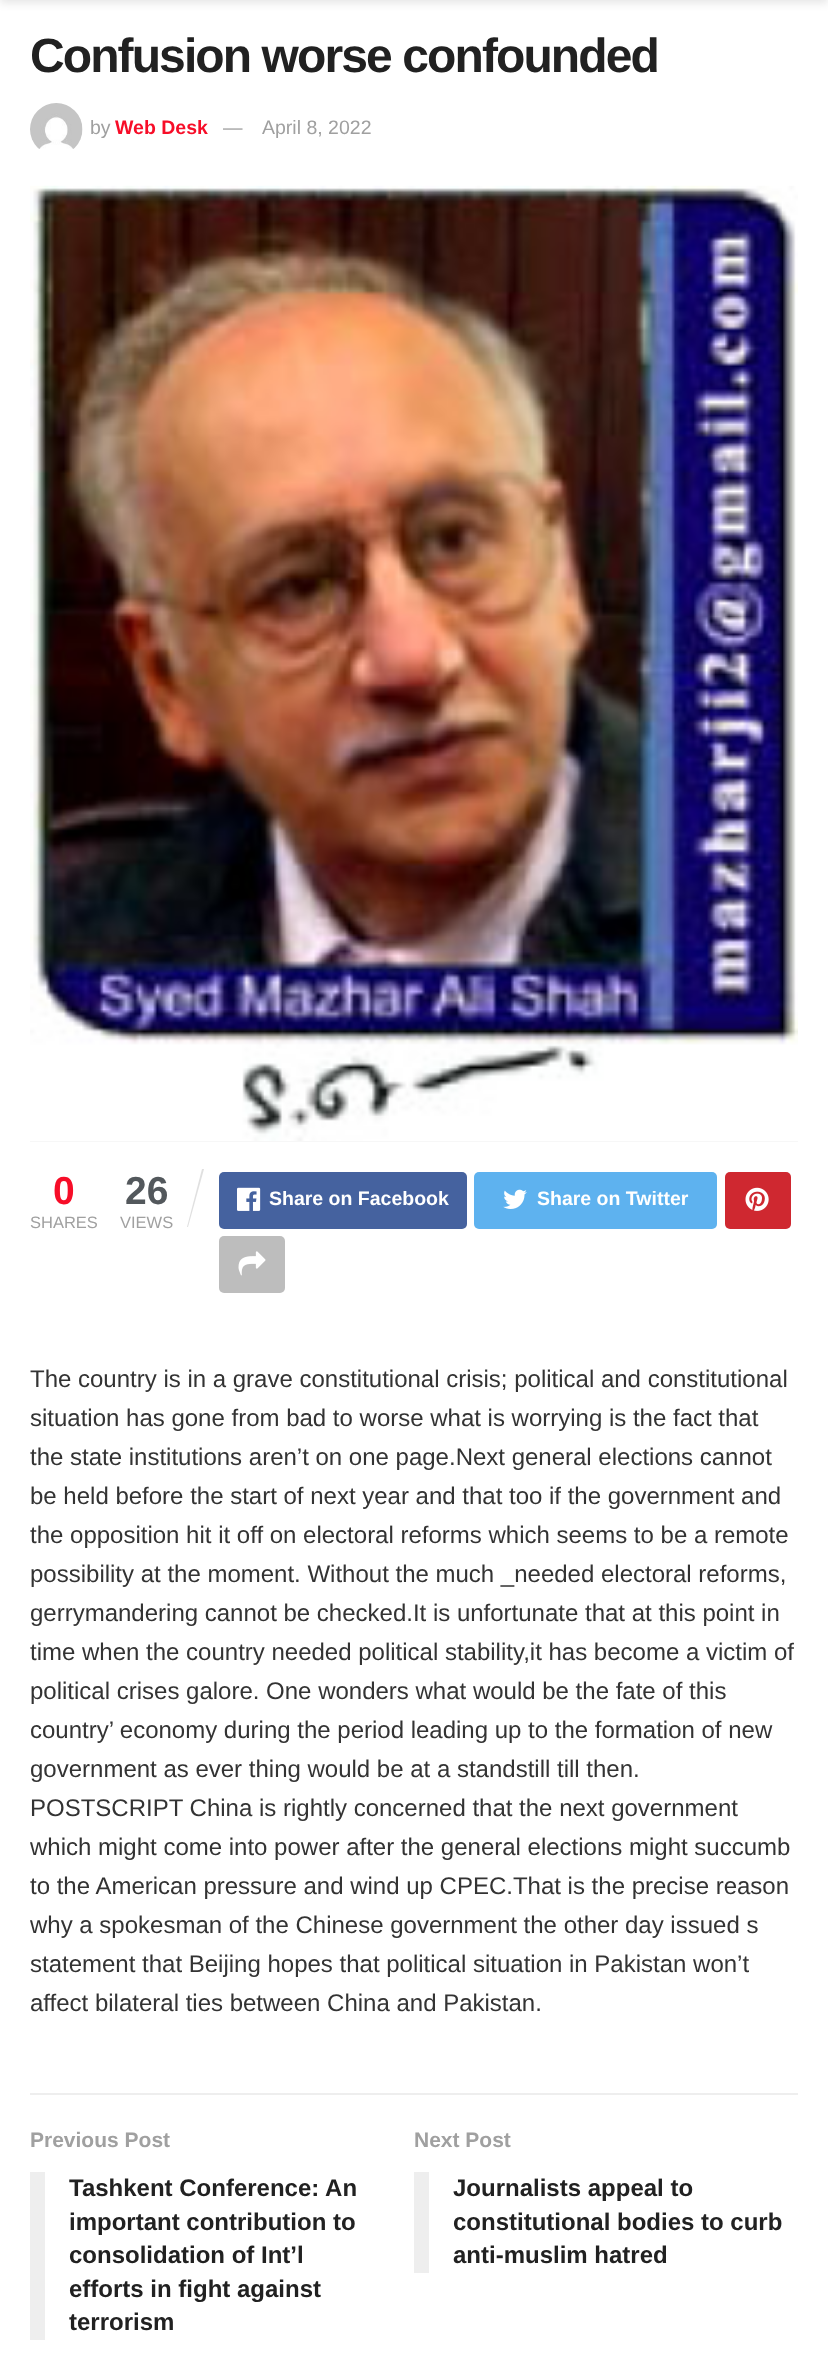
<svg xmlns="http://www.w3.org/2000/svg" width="828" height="2380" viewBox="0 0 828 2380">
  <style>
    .t1 { font: bold 48px Liberation Sans; letter-spacing: -1.9px; fill: #212121; }
    .t2 { font: 19.5px Liberation Sans; fill: #a0a0a0; }
    .t3 { font: bold 19.5px Liberation Sans; fill: #f70d28; }
    .t4 { font: bold 39px Liberation Sans; fill: #f70d28; }
    .t5 { font: 16.5px Liberation Sans; fill: #a0a0a0; }
    .t6 { font: bold 39px Liberation Sans; fill: #53585c; }
    .t7 { font: bold 19.5px Liberation Sans; fill: #fff; }
    .t8 { font: 24px Liberation Sans; fill: #333; }
    .t9 { font: bold 21px Liberation Sans; fill: #a0a0a0; }
    .t10 { font: bold 24px Liberation Sans; fill: #212121; }
  </style>
  <rect width="100%" height="100%" fill="#fff"/>
  <rect x="0" y="-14" width="828" height="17" fill="#0000001a" filter="blur(4.5px)"/>
  <text x="30" y="72" class="t1">Confusion worse confounded</text>
  <image x="30" y="103" width="53" height="46" href="images/1.png"/>
  <text x="90" y="134" class="t2">by</text>
  <text x="115" y="134" class="t3">Web Desk</text>
  <text x="223" y="134" class="t2">—</text>
  <text x="262" y="134" class="t2">April 8, 2022</text>
  <rect x="30" y="1141" width="768" height="1" fill="#f7f7f7"/>
  <image x="30" y="185" width="768" height="956" href="images/2.png"/>
  <text x="53" y="1204" class="t4">0</text>
  <text x="30" y="1228" class="t5">SHARES</text>
  <text x="125" y="1204" class="t6">26</text>
  <path d="M202 1169H204L188 1227H187Z" fill="#e0e0e0"/>
  <text x="120" y="1228" class="t5">VIEWS</text>
  <rect x="219" y="1172" width="248" height="57" rx="5" fill="#45629f"/>
  <image x="237" y="1187" width="24" height="24" href="images/3.png"/>
  <text x="269" y="1205" class="t7">Share on Facebook</text>
  <rect x="474" y="1172" width="243" height="57" rx="5" fill="#5eb2ef"/>
  <image x="503" y="1189" width="24" height="20" href="images/4.png"/>
  <text x="537" y="1205" class="t7">Share on Twitter</text>
  <rect x="725" y="1172" width="66" height="57" rx="5" fill="#cf2830"/>
  <image x="745" y="1187" width="24" height="24" href="images/5.png"/>
  <rect x="219" y="1236" width="66" height="57" rx="5" fill="#bdbdbd"/>
  <image x="238" y="1251" width="28" height="25" href="images/6.png"/>
  <text x="30" y="1387" class="t8">The country is in a grave constitutional crisis; political and constitutional</text>
  <text x="30" y="1426" class="t8">situation has gone from bad to worse what is worrying is the fact that</text>
  <text x="30" y="1465" class="t8">the state institutions aren’t on one page.Next general elections cannot</text>
  <text x="30" y="1504" class="t8">be held before the start of next year and that too if the government and</text>
  <text x="30" y="1543" class="t8">the opposition hit it off on electoral reforms which seems to be a remote</text>
  <text x="30" y="1582" class="t8">possibility at the moment. Without the much _needed electoral reforms,</text>
  <text x="30" y="1621" class="t8">gerrymandering cannot be checked.It is unfortunate that at this point in</text>
  <text x="30" y="1660" class="t8">time when the country needed political stability,it has become a victim of</text>
  <text x="30" y="1699" class="t8">political crises galore. One wonders what would be the fate of this</text>
  <text x="30" y="1738" class="t8">country’ economy during the period leading up to the formation of new</text>
  <text x="30" y="1777" class="t8">government as ever thing would be at a standstill till then.</text>
  <text x="30" y="1816" class="t8">POSTSCRIPT China is rightly concerned that the next government</text>
  <text x="30" y="1855" class="t8">which might come into power after the general elections might succumb</text>
  <text x="30" y="1894" class="t8">to the American pressure and wind up CPEC.That is the precise reason</text>
  <text x="30" y="1933" class="t8">why a spokesman of the Chinese government the other day issued s</text>
  <text x="30" y="1972" class="t8">statement that Beijing hopes that political situation in Pakistan won’t</text>
  <text x="30" y="2011" class="t8">affect bilateral ties between China and Pakistan.</text>
  <rect x="30" y="2093" width="768" height="2" fill="#eee"/>
  <text x="30" y="2147" class="t9">Previous Post</text>
  <rect x="30" y="2172" width="15" height="168" fill="#eee"/>
  <text x="69" y="2196" class="t10">Tashkent Conference: An</text>
  <text x="69" y="2230" class="t10">important contribution to</text>
  <text x="69" y="2263" class="t10">consolidation of Int’l</text>
  <text x="69" y="2297" class="t10">efforts in fight against</text>
  <text x="69" y="2330" class="t10">terrorism</text>
  <text x="414" y="2147" class="t9">Next Post</text>
  <rect x="414" y="2172" width="15" height="101" fill="#eee"/>
  <text x="453" y="2196" class="t10">Journalists appeal to</text>
  <text x="453" y="2230" class="t10">constitutional bodies to curb</text>
  <text x="453" y="2263" class="t10">anti-muslim hatred</text>
</svg>
